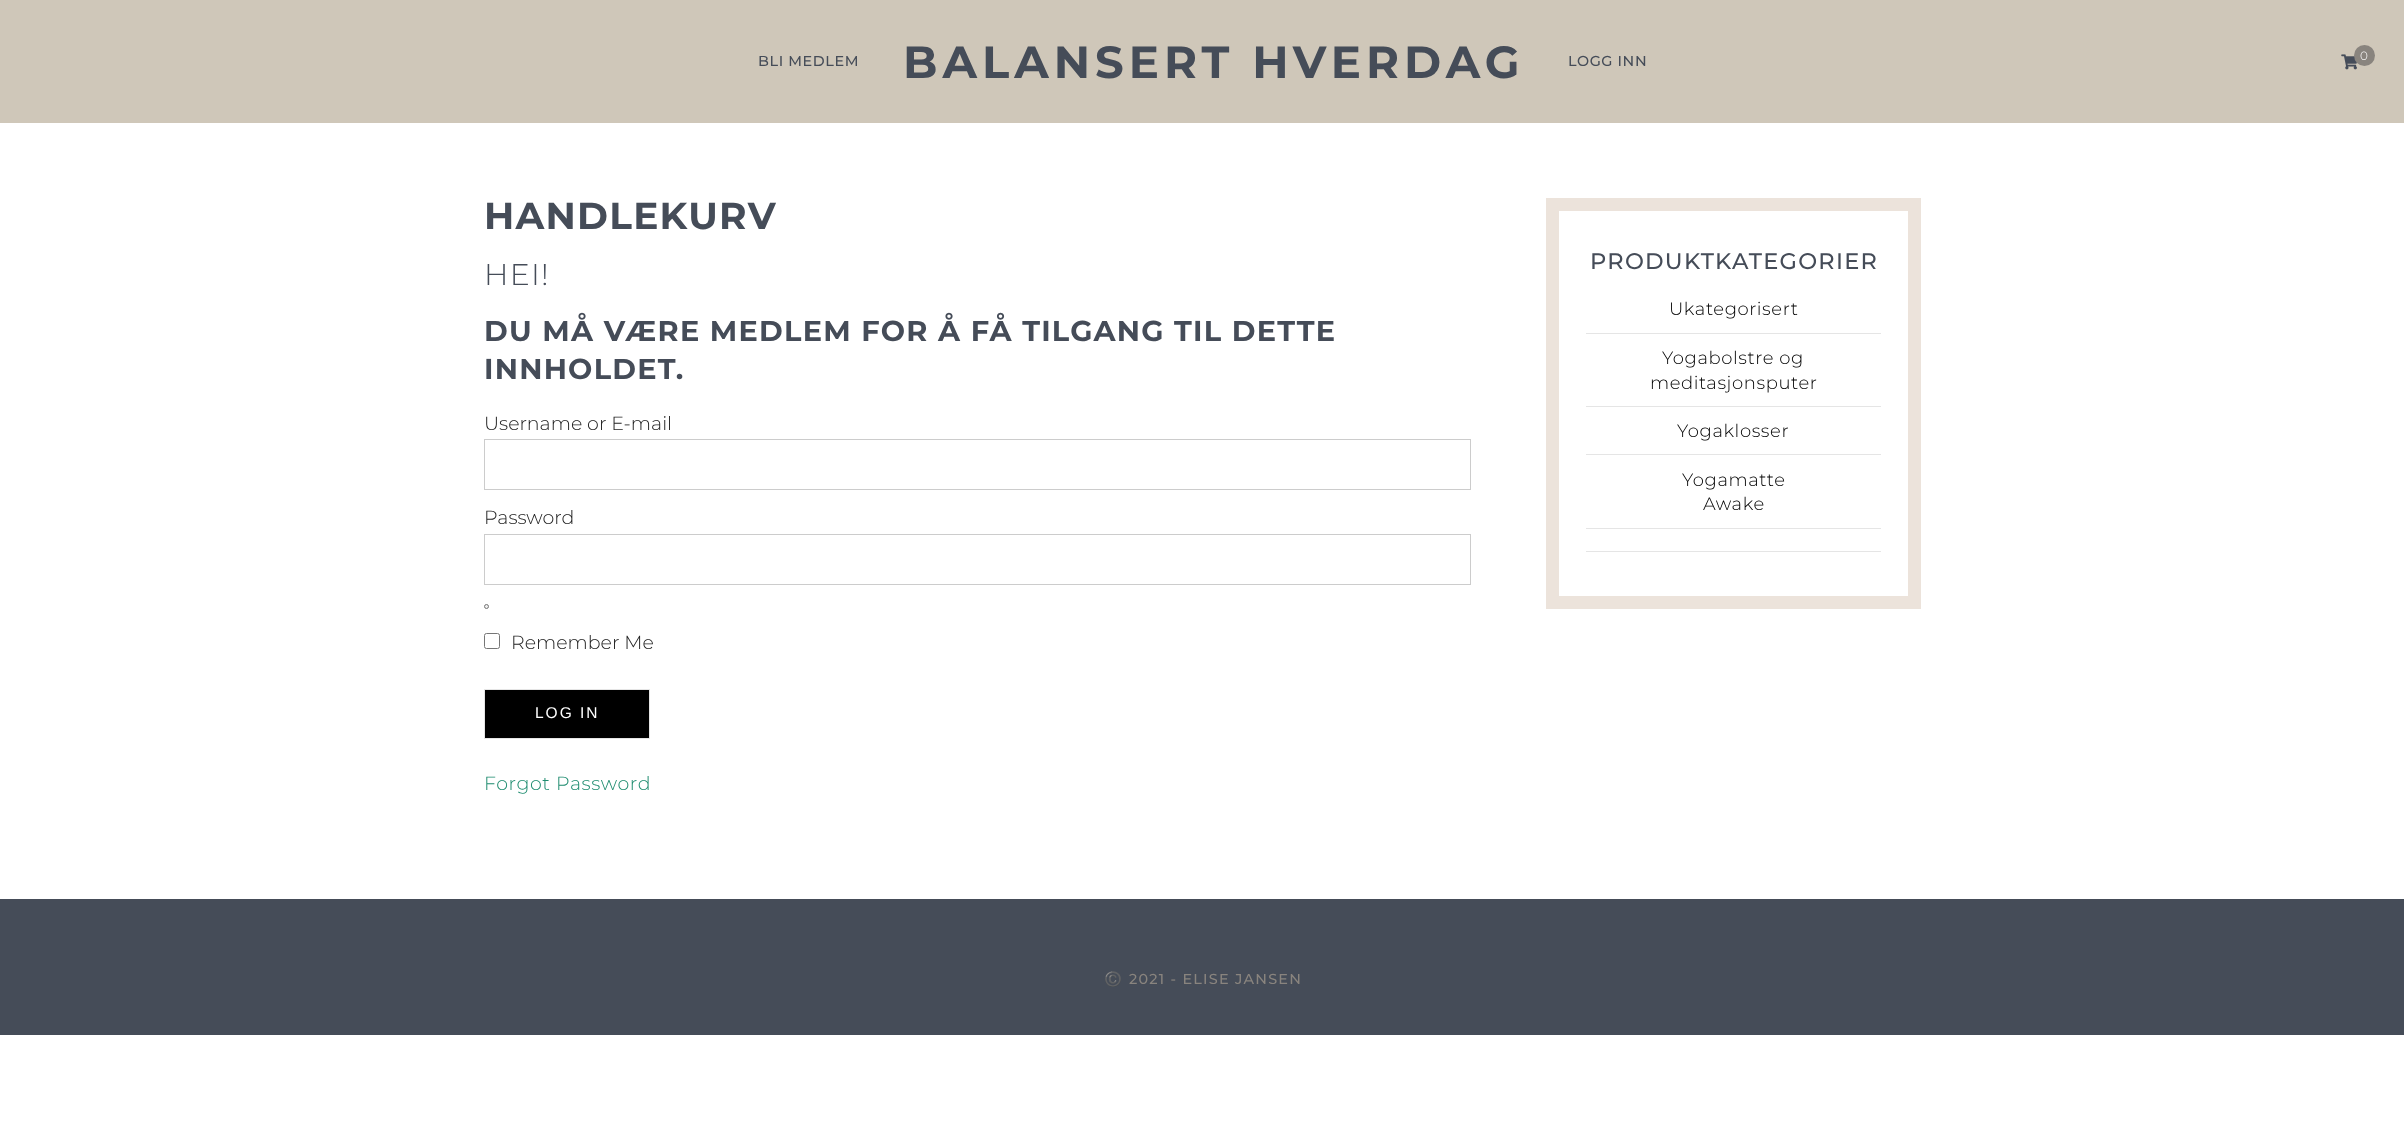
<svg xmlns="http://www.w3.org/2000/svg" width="2404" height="1137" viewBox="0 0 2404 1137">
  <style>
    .t1 { font: 500 14.4px Montserrat; letter-spacing: 0.6px; fill: #454c58; }
    .t2 { font: bold 45px Montserrat; letter-spacing: 5px; fill: #454c58; }
    .t3 { font: 300 12px Montserrat; letter-spacing: 0.6px; fill: #fff; }
    .t4 { font: bold 37.5px Montserrat; letter-spacing: 1.25px; fill: #454c58; }
    .t5 { font: 300 30px Montserrat; letter-spacing: 1.25px; fill: #454c58; }
    .t6 { font: bold 28.75px Montserrat; letter-spacing: 1.25px; fill: #454c58; }
    .t7 { font: 300 19px Montserrat; fill: #222; }
    .t8 { font: 15.5px Liberation Sans; letter-spacing: 2px; fill: #fff; }
    .t9 { font: 300 19px Montserrat; letter-spacing: 0.6px; fill: #1e8c6f; }
    .t10 { font: 500 22.5px Montserrat; letter-spacing: 1.25px; fill: #454c58; }
    .t11 { font: 300 18px Montserrat; letter-spacing: 0.6px; fill: #000; }
    .t12 { font: 14.4px Noto Color Emoji; letter-spacing: 1.25px; fill: #89847e; }
    .t13 { font: 500 14.4px Montserrat; letter-spacing: 1.25px; fill: #89847e; }
  </style>
  <rect width="100%" height="100%" fill="#fff"/>
  <rect x="0" y="0" width="2404" height="123" fill="#cfc7b9"/>
  <text x="758" y="66" class="t1">BLI MEDLEM</text>
  <text x="903" y="78" class="t2">BALANSERT HVERDAG</text>
  <text x="1568" y="66" class="t1">LOGG INN</text>
  <image x="2341" y="54" width="16" height="16" href="images/1.png"/>
  <circle cx="2364.5" cy="55.5" r="10.5" fill="#89847e"/>
  <text x="2360" y="60" class="t3">0</text>
  <text x="484" y="229" class="t4">HANDLEKURV</text>
  <text x="484" y="285" class="t5">HEI!</text>
  <text x="484" y="341" class="t6">DU MÅ VÆRE MEDLEM FOR Å FÅ TILGANG TIL DETTE</text>
  <text x="484" y="379" class="t6">INNHOLDET.</text>
  <text x="484" y="430" class="t7">Username or E-mail</text>
  <rect x="484.5" y="439.5" width="986" height="50" fill="none" stroke="#ccc"/>
  <text x="484" y="524" class="t7">Password</text>
  <rect x="484.5" y="534.5" width="986" height="50" fill="none" stroke="#ccc"/>
  <circle cx="486.5" cy="606.5" r="2" fill="#efefef" stroke="#767676"/>
  <rect x="484.5" y="633.5" width="15" height="15" rx="2" fill="none" stroke="#767676"/>
  <text x="511" y="649" class="t7">Remember Me</text>
  <rect x="484.5" y="689.5" width="165" height="49" fill="#000" stroke="#e5e5e5"/>
  <text x="535" y="718" class="t8">LOG IN</text>
  <text x="484" y="790" class="t9">Forgot Password</text>
  <rect x="1552.5" y="204.5" width="362" height="398" fill="none" stroke="#ece3db" stroke-width="13"/>
  <text x="1590" y="269" class="t10">PRODUKTKATEGORIER</text>
  <rect x="1586" y="333" width="295" height="1" fill="#e5e5e5"/>
  <text x="1669" y="315" class="t11">Ukategorisert</text>
  <rect x="1586" y="406" width="295" height="1" fill="#e5e5e5"/>
  <text x="1662" y="364" class="t11">Yogabolstre og</text>
  <text x="1650" y="389" class="t11">meditasjonsputer</text>
  <rect x="1586" y="454" width="295" height="1" fill="#e5e5e5"/>
  <text x="1677" y="437" class="t11">Yogaklosser</text>
  <rect x="1586" y="551" width="295" height="1" fill="#e5e5e5"/>
  <text x="1682" y="486" class="t11">Yogamatte</text>
  <rect x="1586" y="528" width="295" height="1" fill="#e5e5e5"/>
  <text x="1703" y="510" class="t11">Awake</text>
  <rect x="0" y="899" width="2404" height="136" fill="#454c58"/>
  <text x="1104" y="984" class="t12">©️</text>
  <text x="1129" y="984" class="t13">2021 - ELISE JANSEN</text>
</svg>
